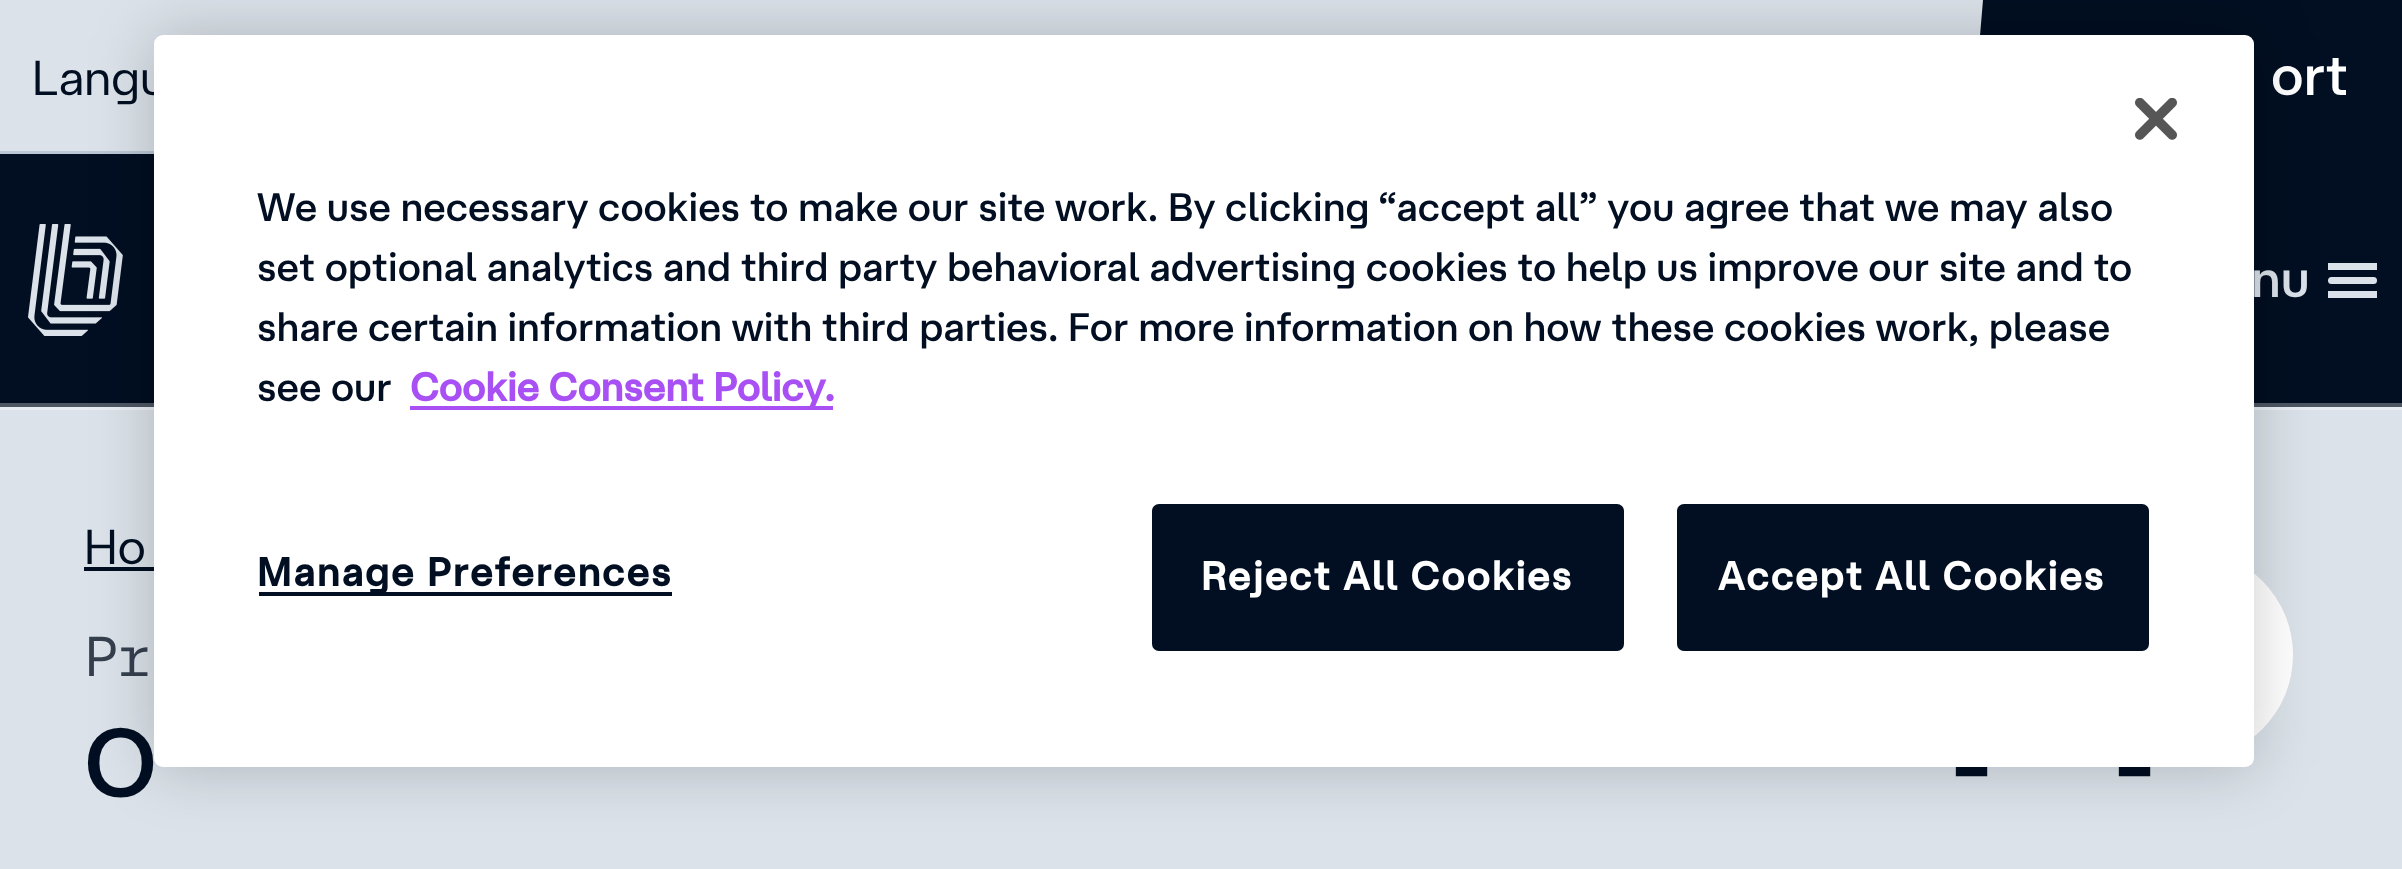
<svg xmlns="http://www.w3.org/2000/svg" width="2402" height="869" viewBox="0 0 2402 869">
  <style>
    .t1 { font: 300 49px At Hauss; fill: #020f22; }
    .t2 { font: 500 56px At Hauss; fill: #fff; }
    .t3 { font: 500 52px At Hauss; fill: #dbe2e9; }
    .t4 { font: 300 56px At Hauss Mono; fill: #353f4e; }
    .t5 { font: 500 98px At Hauss; fill: #020f22; }
    .t6 { font: 500 39.85px At Hauss; fill: #020f22; }
    .t7 { font: bold 39.85px At Hauss; fill: #a850f4; }
    .t8 { font: bold 39.85px At Hauss; letter-spacing: 2px; fill: #020f22; }
    .t9 { font: bold 39.85px At Hauss; letter-spacing: 2px; fill: #fff; }
  </style>
  <rect width="100%" height="100%" fill="#e8edf4"/>
  <rect x="0" y="0" width="1983" height="151" fill="#dbe2e9"/>
  <text x="32" y="95" class="t1">Langu</text>
  <path d="M1983 0L1971 143V154H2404V0Z" fill="#020f22"/>
  <text x="2271" y="95" class="t2">ort</text>
  <rect x="0" y="151" width="154" height="3" fill="#bbc7d6"/>
  <rect x="0" y="154" width="2402" height="249" fill="#020f22"/>
  <image x="28" y="224" width="95" height="112" href="images/1.png"/>
  <text x="2251" y="297" class="t3">nu</text>
  <rect x="2328" y="277" width="49" height="7" rx="3.5" fill="#dbe2e9"/>
  <rect x="2328" y="263" width="49" height="7" fill="#dbe2e9"/>
  <rect x="2328" y="291" width="49" height="7" fill="#dbe2e9"/>
  <rect x="0" y="403" width="2402" height="4" fill="#4e5764"/>
  <rect x="0" y="410" width="2402" height="459" fill="#dbe2e9"/>
  <text x="84" y="564" class="t1">Ho</text>
  <rect x="84" y="567" width="70" height="4" fill="#020f22"/>
  <text x="84" y="676" class="t4">Pr</text>
  <text x="84" y="797" class="t5">O</text>
  <text x="1948" y="797" class="t5">-</text>
  <text x="2111" y="797" class="t5">-</text>
  <circle cx="2188" cy="655" r="105" fill="#fff"/>
  <rect x="154" y="35" width="2100" height="732" rx="9" fill="#00000033" filter="blur(31.5px)"/>
  <rect x="154" y="35" width="2100" height="732" rx="9" fill="#fff"/>
  <image x="2135" y="98" width="42" height="42" href="images/2.png"/>
  <text x="257" y="221" class="t6">We use necessary cookies to make our site work.</text>
  <text x="1168" y="221" class="t6">By clicking “accept all” you agree that we may also</text>
  <text x="257" y="281" class="t6">set optional analytics and third party behavioral advertising cookies to help us improve our site and to</text>
  <text x="257" y="341" class="t6">share certain information with third parties.</text>
  <text x="1068" y="341" class="t6">For more information on how these cookies work, please</text>
  <text x="257" y="401" class="t6">see our</text>
  <rect x="410" y="406" width="423" height="4" fill="#a850f4"/>
  <text x="410" y="401" class="t7">Cookie Consent Policy.</text>
  <rect x="259" y="592" width="413" height="4" fill="#020f22"/>
  <text x="257" y="586" class="t8">Manage Preferences</text>
  <rect x="1154" y="506" width="468" height="143" rx="5" fill="#020f22" stroke="#020f22" stroke-width="4"/>
  <text x="1201" y="590" class="t9">Reject All Cookies</text>
  <rect x="1679" y="506" width="468" height="143" rx="5" fill="#020f22" stroke="#020f22" stroke-width="4"/>
  <text x="1718" y="590" class="t9">Accept All Cookies</text>
</svg>
